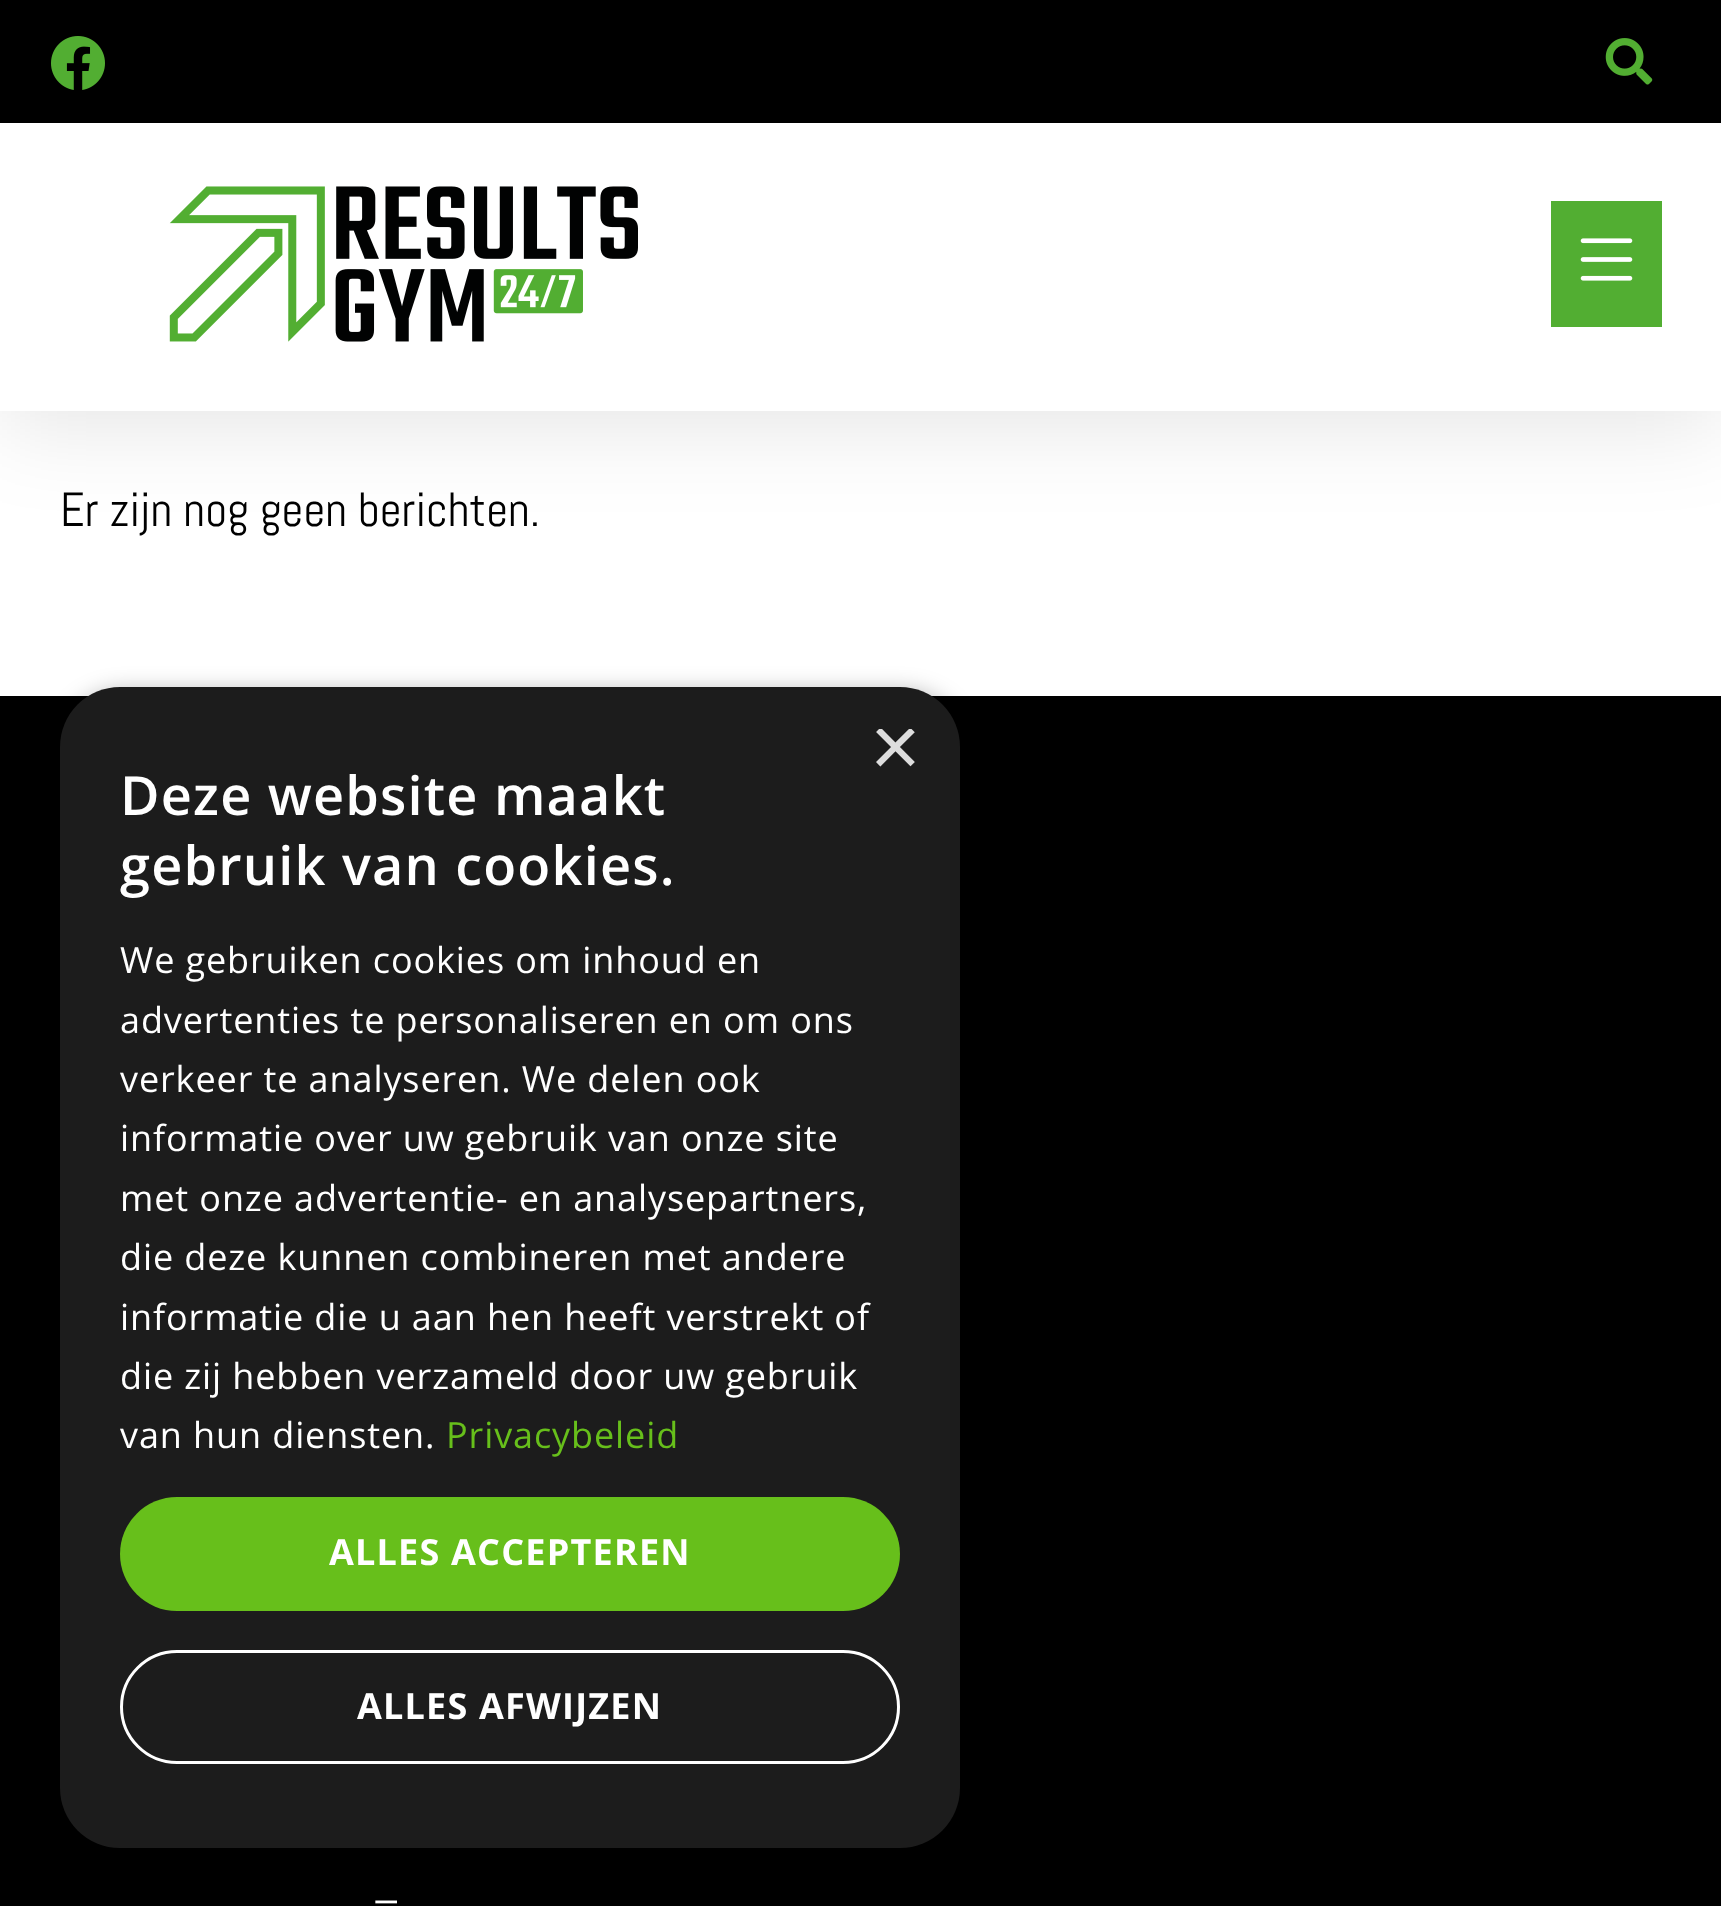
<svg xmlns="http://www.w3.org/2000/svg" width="1721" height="1906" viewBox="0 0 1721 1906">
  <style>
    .t1 { font: 48px Abel; fill: #000; }
    .t2 { font: 87px Liberation Sans; fill: #ddd; }
    .t3 { font: 600 54px Open Sans; letter-spacing: 1.2px; fill: #fff; }
    .t4 { font: 36px Open Sans; letter-spacing: 0.9px; fill: #fff; }
    .t5 { font: 36px Open Sans; letter-spacing: 0.9px; fill: #67bf1b; }
    .t6 { font: bold 36px Open Sans; letter-spacing: 1.2px; fill: #fff; }
    .t7 { font: 48px Abel; fill: #fff; }
  </style>
  <defs>
    <clipPath id="clip1"><rect x="870" y="729" width="45" height="45"/></clipPath>
  </defs>
  <rect width="100%" height="100%" fill="#fff"/>
  <rect x="0" y="15" width="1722" height="411" fill="#0000001a" filter="blur(45px)"/>
  <rect x="0" y="0" width="1721" height="123" fill="#000"/>
  <image x="51" y="36" width="54" height="54" href="images/1.png"/>
  <image x="1605" y="38" width="48" height="47" href="images/2.png"/>
  <rect x="0" y="123" width="1721" height="288" fill="#fff"/>
  <image x="169" y="186" width="469" height="156" href="images/3.png"/>
  <rect x="1551" y="201" width="111" height="126" fill="#52ae32"/>
  <image x="1580" y="238" width="53" height="43" href="images/4.png"/>
  <text x="60" y="526" class="t1">Er zijn nog geen berichten.</text>
  <rect x="0" y="696" width="1721" height="1210" fill="#000"/>
  <rect x="63" y="693" width="900" height="1161" rx="60" fill="#00000059" filter="blur(12px)"/>
  <rect x="60" y="687" width="900" height="1161" rx="60" fill="#1c1c1c"/>
  <g clip-path="url(#clip1)">
    <text x="870" y="776" class="t2">×</text>
  </g>
  <text x="120" y="815" class="t3">Deze website maakt</text>
  <text x="120" y="885" class="t3">gebruik van cookies.</text>
  <text x="120" y="973" class="t4">We gebruiken cookies om inhoud en</text>
  <text x="120" y="1033" class="t4">advertenties te personaliseren en om ons</text>
  <text x="120" y="1092" class="t4">verkeer te analyseren. We delen ook</text>
  <text x="120" y="1151" class="t4">informatie over uw gebruik van onze site</text>
  <text x="120" y="1211" class="t4">met onze advertentie- en analysepartners,</text>
  <text x="120" y="1270" class="t4">die deze kunnen combineren met andere</text>
  <text x="120" y="1330" class="t4">informatie die u aan hen heeft verstrekt of</text>
  <text x="120" y="1389" class="t4">die zij hebben verzameld door uw gebruik</text>
  <text x="120" y="1448" class="t4">van hun diensten.</text>
  <text x="446" y="1448" class="t5">Privacybeleid</text>
  <rect x="120" y="1497" width="780" height="114" rx="57" fill="#67bf1b"/>
  <text x="329" y="1565" class="t6">ALLES ACCEPTEREN</text>
  <rect x="121.5" y="1651.5" width="777" height="111" rx="55.5" fill="none" stroke="#fff" stroke-width="3"/>
  <text x="357" y="1719" class="t6">ALLES AFWIJZEN</text>
  <text x="373" y="1918" class="t7">–</text>
</svg>
